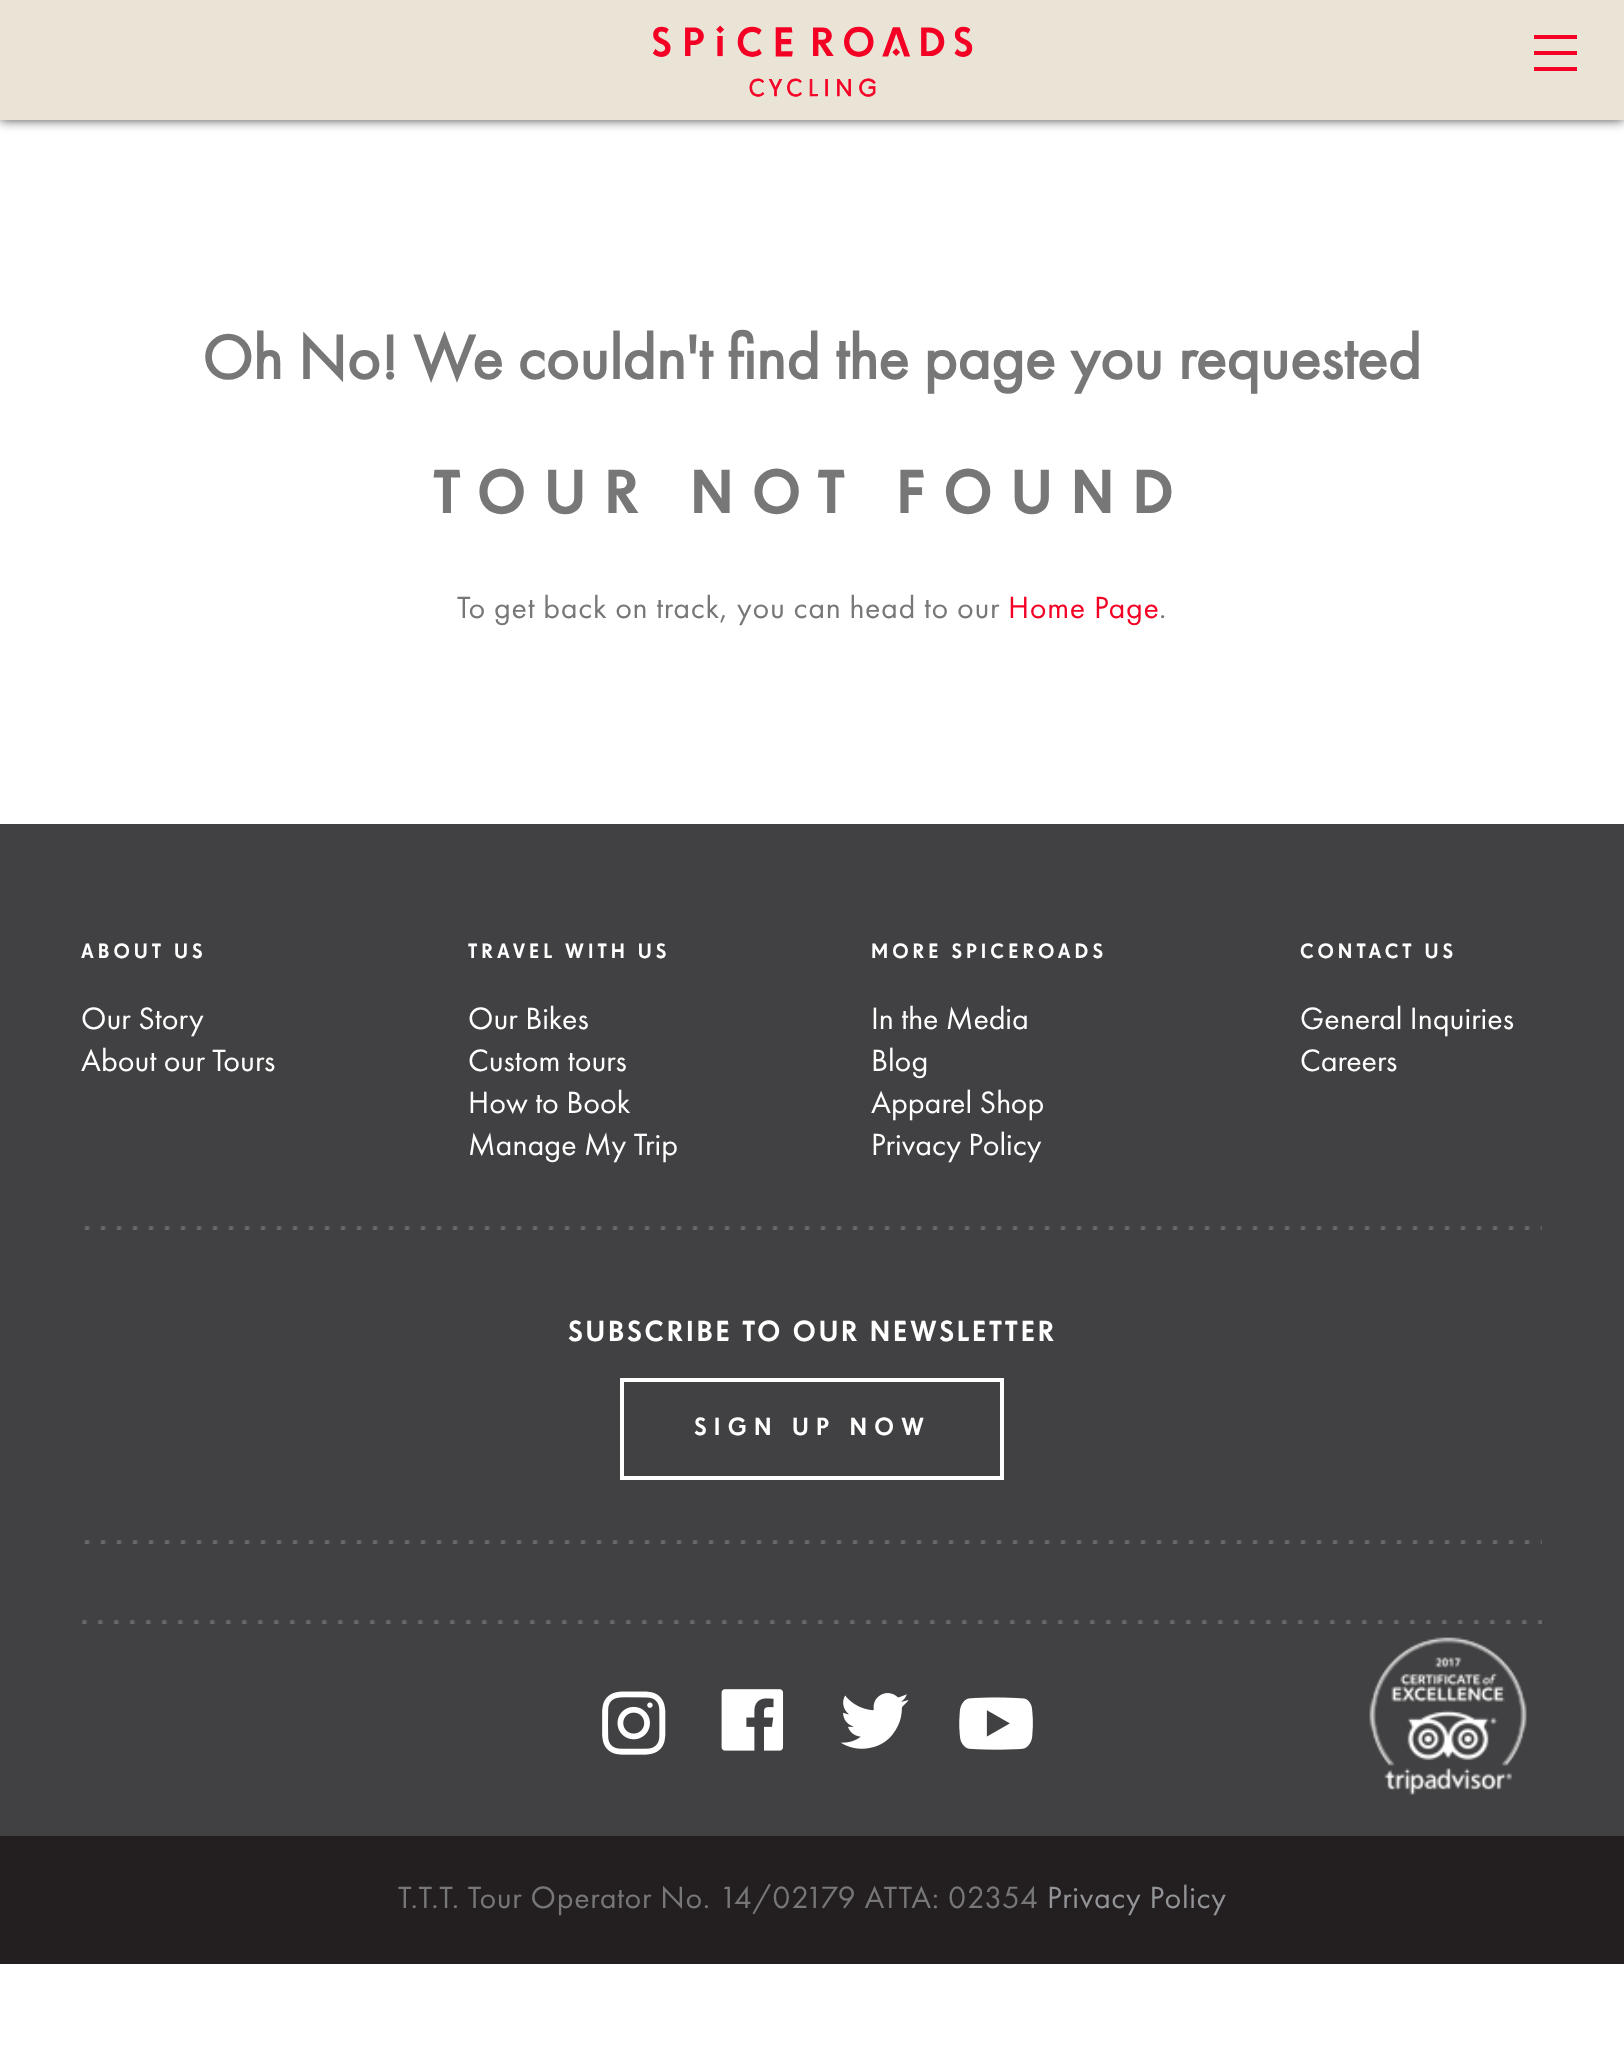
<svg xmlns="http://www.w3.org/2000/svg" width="1624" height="2046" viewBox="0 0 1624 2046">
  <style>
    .t1 { font: bold 64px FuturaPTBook; fill: #777; }
    .t2 { font: 60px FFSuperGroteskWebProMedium; letter-spacing: 18px; fill: #777; }
    .t3 { font: 32px FuturaPTBook; letter-spacing: 0.65px; fill: #777; }
    .t4 { font: 32px FuturaPTBook; letter-spacing: 0.65px; fill: #f30024; }
    .t5 { font: 20px FFSuperGroteskWebProMedium; letter-spacing: 4px; fill: #fff; }
    .t6 { font: 32px FuturaPTBook; fill: #fff; }
    .t7 { font: 28px FFSuperGroteskWebProMedium; letter-spacing: 2.8px; fill: #fff; }
    .t8 { font: 24px FFSuperGroteskWebProMedium; letter-spacing: 7.25px; fill: #fff; }
    .t9 { font: 32px FuturaPTBook; letter-spacing: 0.65px; fill: #929497; }
  </style>
  <rect width="100%" height="100%" fill="#fff"/>
  <rect x="0" y="0" width="1624" height="120" fill="#444" filter="blur(6px)"/>
  <rect x="0" y="0" width="1624" height="120" fill="#eae4d7"/>
  <image x="653" y="25" width="320" height="72" href="images/1.png"/>
  <rect x="1534" y="35" width="43" height="4" fill="#f30024"/>
  <rect x="1534" y="51" width="43" height="4" fill="#f30024"/>
  <rect x="1534" y="67" width="43" height="4" fill="#f30024"/>
  <text x="202" y="379" class="t1">Oh No! We couldn't find the page you requested</text>
  <text x="433" y="513" class="t2">TOUR NOT FOUND</text>
  <text x="457" y="618" class="t3">To get back on track, you can head to our</text>
  <text x="1008" y="618" class="t4">Home Page</text>
  <text x="1159" y="618" class="t3">.</text>
  <rect x="0" y="824" width="1624" height="1012" fill="#414042"/>
  <image x="84" y="1226" width="1458" height="4" href="images/2.png"/>
  <text x="81" y="958" class="t5">ABOUT US</text>
  <text x="81" y="1029" class="t6">Our Story</text>
  <text x="81" y="1071" class="t6">About our Tours</text>
  <text x="468" y="958" class="t5">TRAVEL WITH US</text>
  <text x="468" y="1029" class="t6">Our Bikes</text>
  <text x="468" y="1071" class="t6">Custom tours</text>
  <text x="468" y="1113" class="t6">How to Book</text>
  <text x="468" y="1155" class="t6">Manage My Trip</text>
  <text x="871" y="958" class="t5">MORE SPICEROADS</text>
  <text x="871" y="1029" class="t6">In the Media</text>
  <text x="871" y="1071" class="t6">Blog</text>
  <text x="871" y="1113" class="t6">Apparel Shop</text>
  <text x="871" y="1155" class="t6">Privacy Policy</text>
  <text x="1300" y="958" class="t5">CONTACT US</text>
  <text x="1300" y="1029" class="t6">General Inquiries</text>
  <text x="1300" y="1071" class="t6">Careers</text>
  <text x="568" y="1341" class="t7">SUBSCRIBE TO OUR NEWSLETTER</text>
  <rect x="622" y="1380" width="380" height="98" fill="none" stroke="#fff" stroke-width="4"/>
  <text x="694" y="1435" class="t8">SIGN UP NOW</text>
  <image x="84" y="1540" width="1458" height="4" href="images/2.png"/>
  <image x="82" y="1620" width="1460" height="4" href="images/3.png"/>
  <image x="602" y="1691" width="64" height="64" href="images/4.png"/>
  <image x="721" y="1689" width="63" height="62" href="images/5.png"/>
  <image x="841" y="1693" width="68" height="56" href="images/6.png"/>
  <image x="959" y="1697" width="74" height="53" href="images/7.png"/>
  <image x="1369" y="1637" width="158" height="158" href="images/8.png"/>
  <rect x="0" y="1836" width="1624" height="128" fill="#231f20"/>
  <text x="398" y="1908" class="t3">T.T.T. Tour Operator No. 14/02179 ATTA: 02354</text>
  <text x="1047" y="1908" class="t9">Privacy Policy</text>
</svg>
